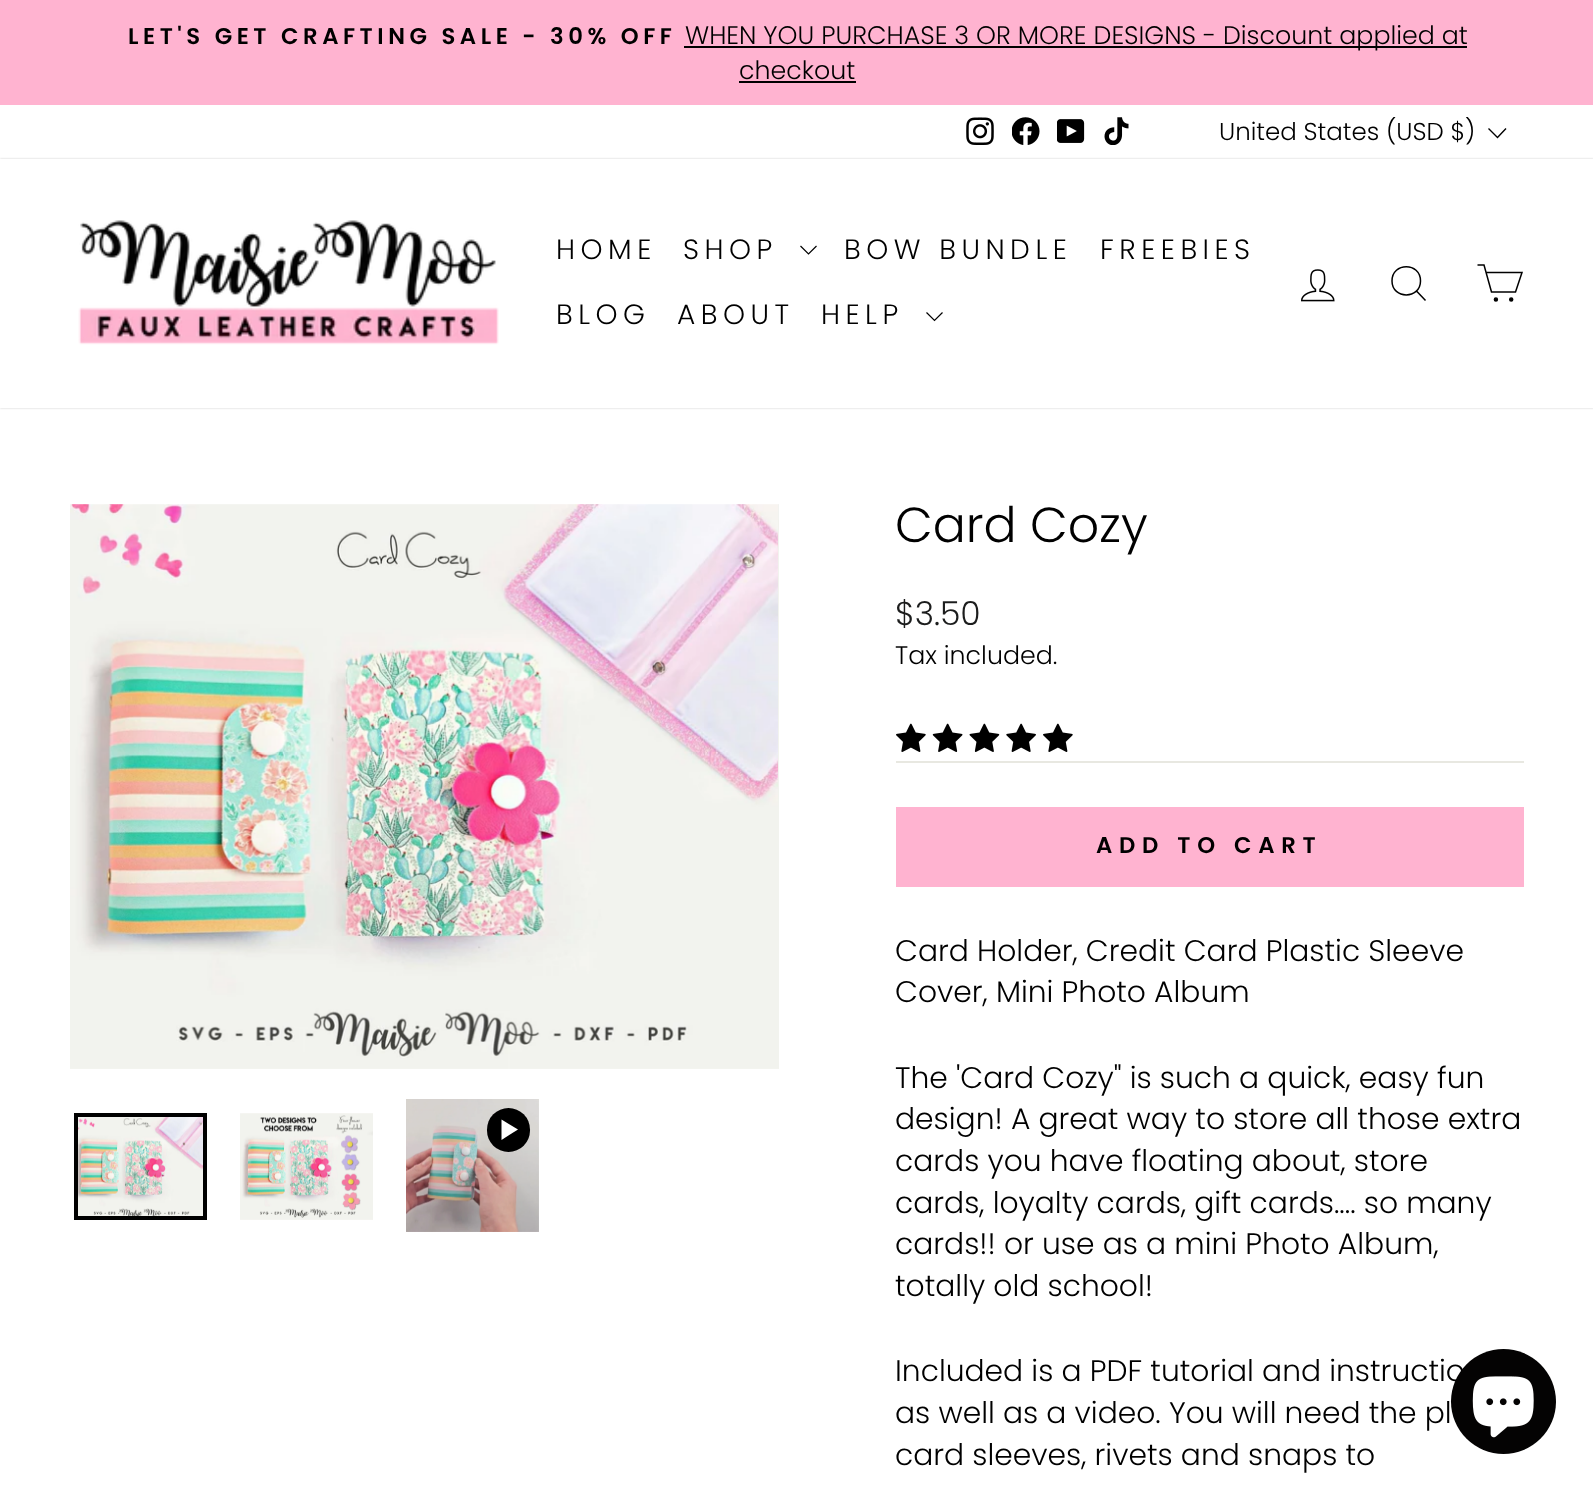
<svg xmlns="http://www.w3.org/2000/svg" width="1593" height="1491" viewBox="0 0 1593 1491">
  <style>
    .t1 { font: 600 22.75px Poppins; letter-spacing: 4.55px; fill: #000; }
    .t2 { font: 300 25.3px Poppins; fill: #000; }
    .t3 { font: 300 24.5px Poppins; fill: #000; }
    .t4 { font: 300 28px Poppins; letter-spacing: 5.5px; fill: #000; }
    .t5 { font: 300 49px Poppins; fill: #000; }
    .t6 { font: 300 33px Poppins; fill: #1c1d1d; }
    .t7 { font: 600 22.75px Poppins; letter-spacing: 6.75px; fill: #000; }
    .t8 { font: 300 29.75px Poppins; fill: #000; }
  </style>
  <rect width="100%" height="100%" fill="#fff"/>
  <rect x="0" y="0" width="1593" height="105" fill="#ffb3d0"/>
  <text x="128" y="44" class="t1">LET'S GET CRAFTING SALE - 30% OFF</text>
  <rect x="684" y="46" width="783" height="2" fill="#000"/>
  <text x="685" y="44" class="t2">WHEN YOU PURCHASE 3 OR MORE DESIGNS - Discount applied at</text>
  <text x="739" y="79" class="t2">checkout</text>
  <rect x="739" y="81" width="117" height="2" fill="#000"/>
  <image x="966" y="117" width="28" height="28" href="images/1.png"/>
  <image x="1012" y="117" width="28" height="28" href="images/2.png"/>
  <image x="1057" y="119" width="28" height="24" href="images/3.png"/>
  <image x="1104" y="117" width="25" height="28" href="images/4.png"/>
  <text x="1219" y="140" class="t3">United States (USD $)</text>
  <path d="M1488.5 128.5L1497.5 137.5L1506 128.5" fill="none" stroke="#000" stroke-width="1.4"/>
  <rect x="0" y="159" width="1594" height="249" fill="#00000033" filter="blur(1px)"/>
  <rect x="0" y="159" width="1593" height="249" fill="#fff"/>
  <image x="78" y="220" width="421" height="125" href="images/5.png"/>
  <text x="556" y="259" class="t4">HOME</text>
  <text x="683" y="259" class="t4">SHOP</text>
  <path d="M800.5 246L808.5 254L816.5 246" fill="none" stroke="#000" stroke-width="1.2"/>
  <text x="844" y="259" class="t4">BOW BUNDLE</text>
  <text x="1100" y="259" class="t4">FREEBIES</text>
  <text x="556" y="324" class="t4">BLOG</text>
  <text x="677" y="324" class="t4">ABOUT</text>
  <text x="821" y="324" class="t4">HELP</text>
  <path d="M926.5 312.5L934.5 320.5L942.5 312.5" fill="none" stroke="#000" stroke-width="1.2"/>
  <image x="1301" y="269" width="34" height="33" href="images/6.png"/>
  <path d="M1420.5 281C1420.5 299.5 1392 299.5 1392 281C1392 262 1420.5 262 1420.5 281ZM1425.5 300.5L1416.5 291" fill="none" stroke="#000" stroke-width="1.5"/>
  <path d="M1486 272.5H1522L1515.5 292H1491.5L1484 265H1477.5" fill="none" stroke="#000" stroke-width="1.5"/>
  <circle cx="1495.9" cy="299.6" r="1.5" fill="#000" stroke="#000" stroke-width="1.5"/>
  <circle cx="1511.2" cy="299.6" r="1.5" fill="#000" stroke="#000" stroke-width="1.5"/>
  <image x="70" y="504" width="709" height="565" href="images/7.png"/>
  <image x="778" y="504" width="1" height="565" href="images/8.png"/>
  <image x="78" y="1117" width="125" height="99" href="images/9.png"/>
  <rect x="76" y="1115" width="129" height="103" fill="none" stroke="#000" stroke-width="4"/>
  <image x="240" y="1113" width="133" height="107" href="images/10.png"/>
  <image x="406" y="1099" width="133" height="133" href="images/11.png"/>
  <rect x="487" y="1108" width="43" height="44" rx="21.5" fill="#000"/>
  <path d="M501.5 1119.5V1140L518 1129.5Z" fill="#fff"/>
  <text x="895" y="542" class="t5">Card Cozy</text>
  <text x="895" y="625" class="t6">$3.50</text>
  <text x="895" y="664" class="t2">Tax included.</text>
  <image x="896" y="723" width="30" height="29" href="images/12.png"/>
  <image x="932" y="723" width="31" height="29" href="images/13.png"/>
  <image x="969" y="723" width="31" height="29" href="images/14.png"/>
  <image x="1006" y="723" width="30" height="29" href="images/15.png"/>
  <image x="1043" y="723" width="30" height="29" href="images/12.png"/>
  <rect x="896" y="761" width="628" height="2" fill="#e8e8e1"/>
  <rect x="896" y="807" width="628" height="80" fill="#ffb3d0"/>
  <text x="1096" y="853" class="t7">ADD TO CART</text>
  <text x="895" y="961" class="t8">Card Holder, Credit Card Plastic Sleeve</text>
  <text x="895" y="1002" class="t8">Cover, Mini Photo Album</text>
  <text x="895" y="1088" class="t8">The 'Card Cozy" is such a quick, easy fun</text>
  <text x="895" y="1129" class="t8">design! A great way to store all those extra</text>
  <text x="895" y="1171" class="t8">cards you have floating about, store</text>
  <text x="895" y="1213" class="t8">cards, loyalty cards, gift cards.... so many</text>
  <text x="895" y="1254" class="t8">cards!! or use as a mini Photo Album,</text>
  <text x="895" y="1296" class="t8">totally old school!</text>
  <text x="895" y="1381" class="t8">Included is a PDF tutorial and instructio</text>
  <text x="895" y="1423" class="t8">as well as a video. You will need the pl</text>
  <text x="895" y="1465" class="t8">card sleeves, rivets and snaps to</text>
  <circle cx="1503.5" cy="1401.5" r="52.5" fill="#040303"/>
  <image x="1472" y="1376" width="62" height="62" href="images/16.png"/>
</svg>
